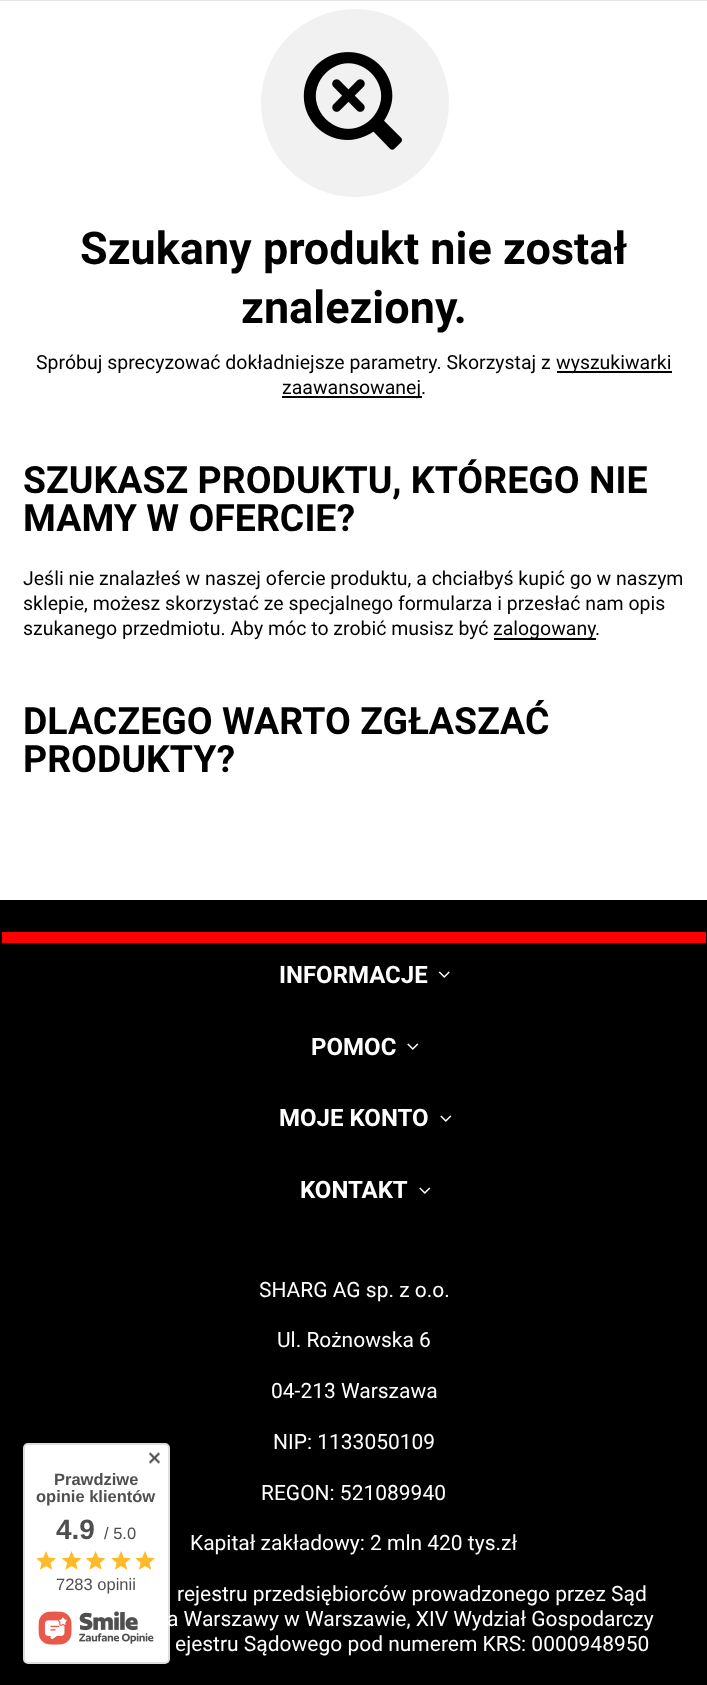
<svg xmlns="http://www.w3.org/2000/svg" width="707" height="1685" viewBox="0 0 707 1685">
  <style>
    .t1 { font: bold 45px Roboto; fill: #000; }
    .t2 { font: 19.5px Roboto; fill: #000; }
    .t3 { font: bold 37.5px Roboto; fill: #000; }
    .t4 { font: bold 16.5px Liberation Sans; fill: #4f4f4f; }
    .t5 { font: bold 28px Liberation Sans; fill: #4f4f4f; }
    .t6 { font: 16.5px Liberation Sans; fill: #4f4f4f; }
    .t7 { font: bold 24px Roboto; fill: #fff; }
    .t8 { font: 21px Roboto; fill: #fff; }
  </style>
  <rect width="100%" height="100%" fill="#fff"/>
  <rect x="0" y="0" width="707" height="1" fill="#e3e5e5"/>
  <circle cx="355" cy="103" r="94" fill="#f1f1f1"/>
  <image x="303" y="52" width="99" height="98" href="images/1.png"/>
  <text x="80" y="264" class="t1">Szukany produkt nie został</text>
  <text x="241" y="323" class="t1">znaleziony.</text>
  <text x="36" y="369" class="t2">Spróbuj sprecyzować dokładniejsze parametry. Skorzystaj z</text>
  <rect x="557" y="371" width="115" height="2" fill="#000"/>
  <text x="556" y="369" class="t2">wyszukiwarki</text>
  <rect x="282" y="396" width="140" height="2" fill="#000"/>
  <text x="282" y="394" class="t2">zaawansowanej.</text>
  <text x="23" y="493" class="t3">SZUKASZ PRODUKTU, KTÓREGO NIE</text>
  <text x="23" y="531" class="t3">MAMY W OFERCIE?</text>
  <text x="23" y="585" class="t2">Jeśli nie znalazłeś w naszej ofercie produktu, a chciałbyś kupić go w naszym</text>
  <text x="23" y="610" class="t2">sklepie, możesz skorzystać ze specjalnego formularza i przesłać nam opis</text>
  <text x="23" y="635" class="t2">szukanego przedmiotu. Aby móc to zrobić musisz być</text>
  <rect x="494" y="638" width="102" height="2" fill="#000"/>
  <text x="493" y="635" class="t2">zalogowany</text>
  <text x="595" y="635" class="t2">.</text>
  <text x="23" y="734" class="t3">DLACZEGO WARTO ZGŁASZAĆ</text>
  <text x="23" y="772" class="t3">PRODUKTY?</text>
  <rect x="0" y="900" width="707" height="785" fill="#000"/>
  <rect x="30" y="1451" width="147" height="220" rx="5" fill="#0000001a" filter="blur(11px)"/>
  <rect x="24" y="1444" width="145" height="219" rx="4" fill="#fff" stroke="#dedede" stroke-width="2"/>
  <image x="149" y="1452" width="11" height="12" href="images/2.png"/>
  <text x="54" y="1485" class="t4">Prawdziwe</text>
  <text x="36" y="1502" class="t4">opinie klientów</text>
  <text x="56" y="1539" class="t5">4.9</text>
  <text x="104" y="1539" class="t6">/ 5.0</text>
  <image x="36" y="1551" width="20" height="19" href="images/3.png"/>
  <image x="62" y="1551" width="19" height="19" href="images/4.png"/>
  <image x="86" y="1551" width="20" height="19" href="images/5.png"/>
  <image x="111" y="1551" width="20" height="19" href="images/3.png"/>
  <image x="135" y="1551" width="20" height="19" href="images/3.png"/>
  <text x="56" y="1590" class="t6">7283 opinii</text>
  <image x="38" y="1611" width="116" height="34" href="images/6.png"/>
  <rect x="2" y="932" width="704" height="11" fill="#f00"/>
  <text x="279" y="983" class="t7">INFORMACJE</text>
  <image x="438" y="971" width="12" height="7" href="images/7.png"/>
  <text x="311" y="1055" class="t7">POMOC</text>
  <image x="407" y="1043" width="12" height="7" href="images/8.png"/>
  <text x="279" y="1126" class="t7">MOJE KONTO</text>
  <image x="440" y="1115" width="12" height="7" href="images/8.png"/>
  <text x="300" y="1198" class="t7">KONTAKT</text>
  <image x="419" y="1187" width="12" height="7" href="images/8.png"/>
  <text x="259" y="1297" class="t8">SHARG AG sp. z o.o.</text>
  <text x="277" y="1347" class="t8">Ul. Rożnowska 6</text>
  <text x="271" y="1398" class="t8">04-213 Warszawa</text>
  <text x="273" y="1449" class="t8">NIP: 1133050109</text>
  <text x="261" y="1500" class="t8">REGON: 521089940</text>
  <text x="190" y="1550" class="t8">Kapitał zakładowy: 2 mln 420 tys.zł</text>
  <text x="177" y="1601" class="t8">rejestru przedsiębiorców prowadzonego przez Sąd</text>
  <text x="167" y="1626" class="t8">a Warszawy w Warszawie, XIV Wydział Gospodarczy</text>
  <text x="175" y="1651" class="t8">ejestru Sądowego pod numerem KRS: 0000948950</text>
</svg>
